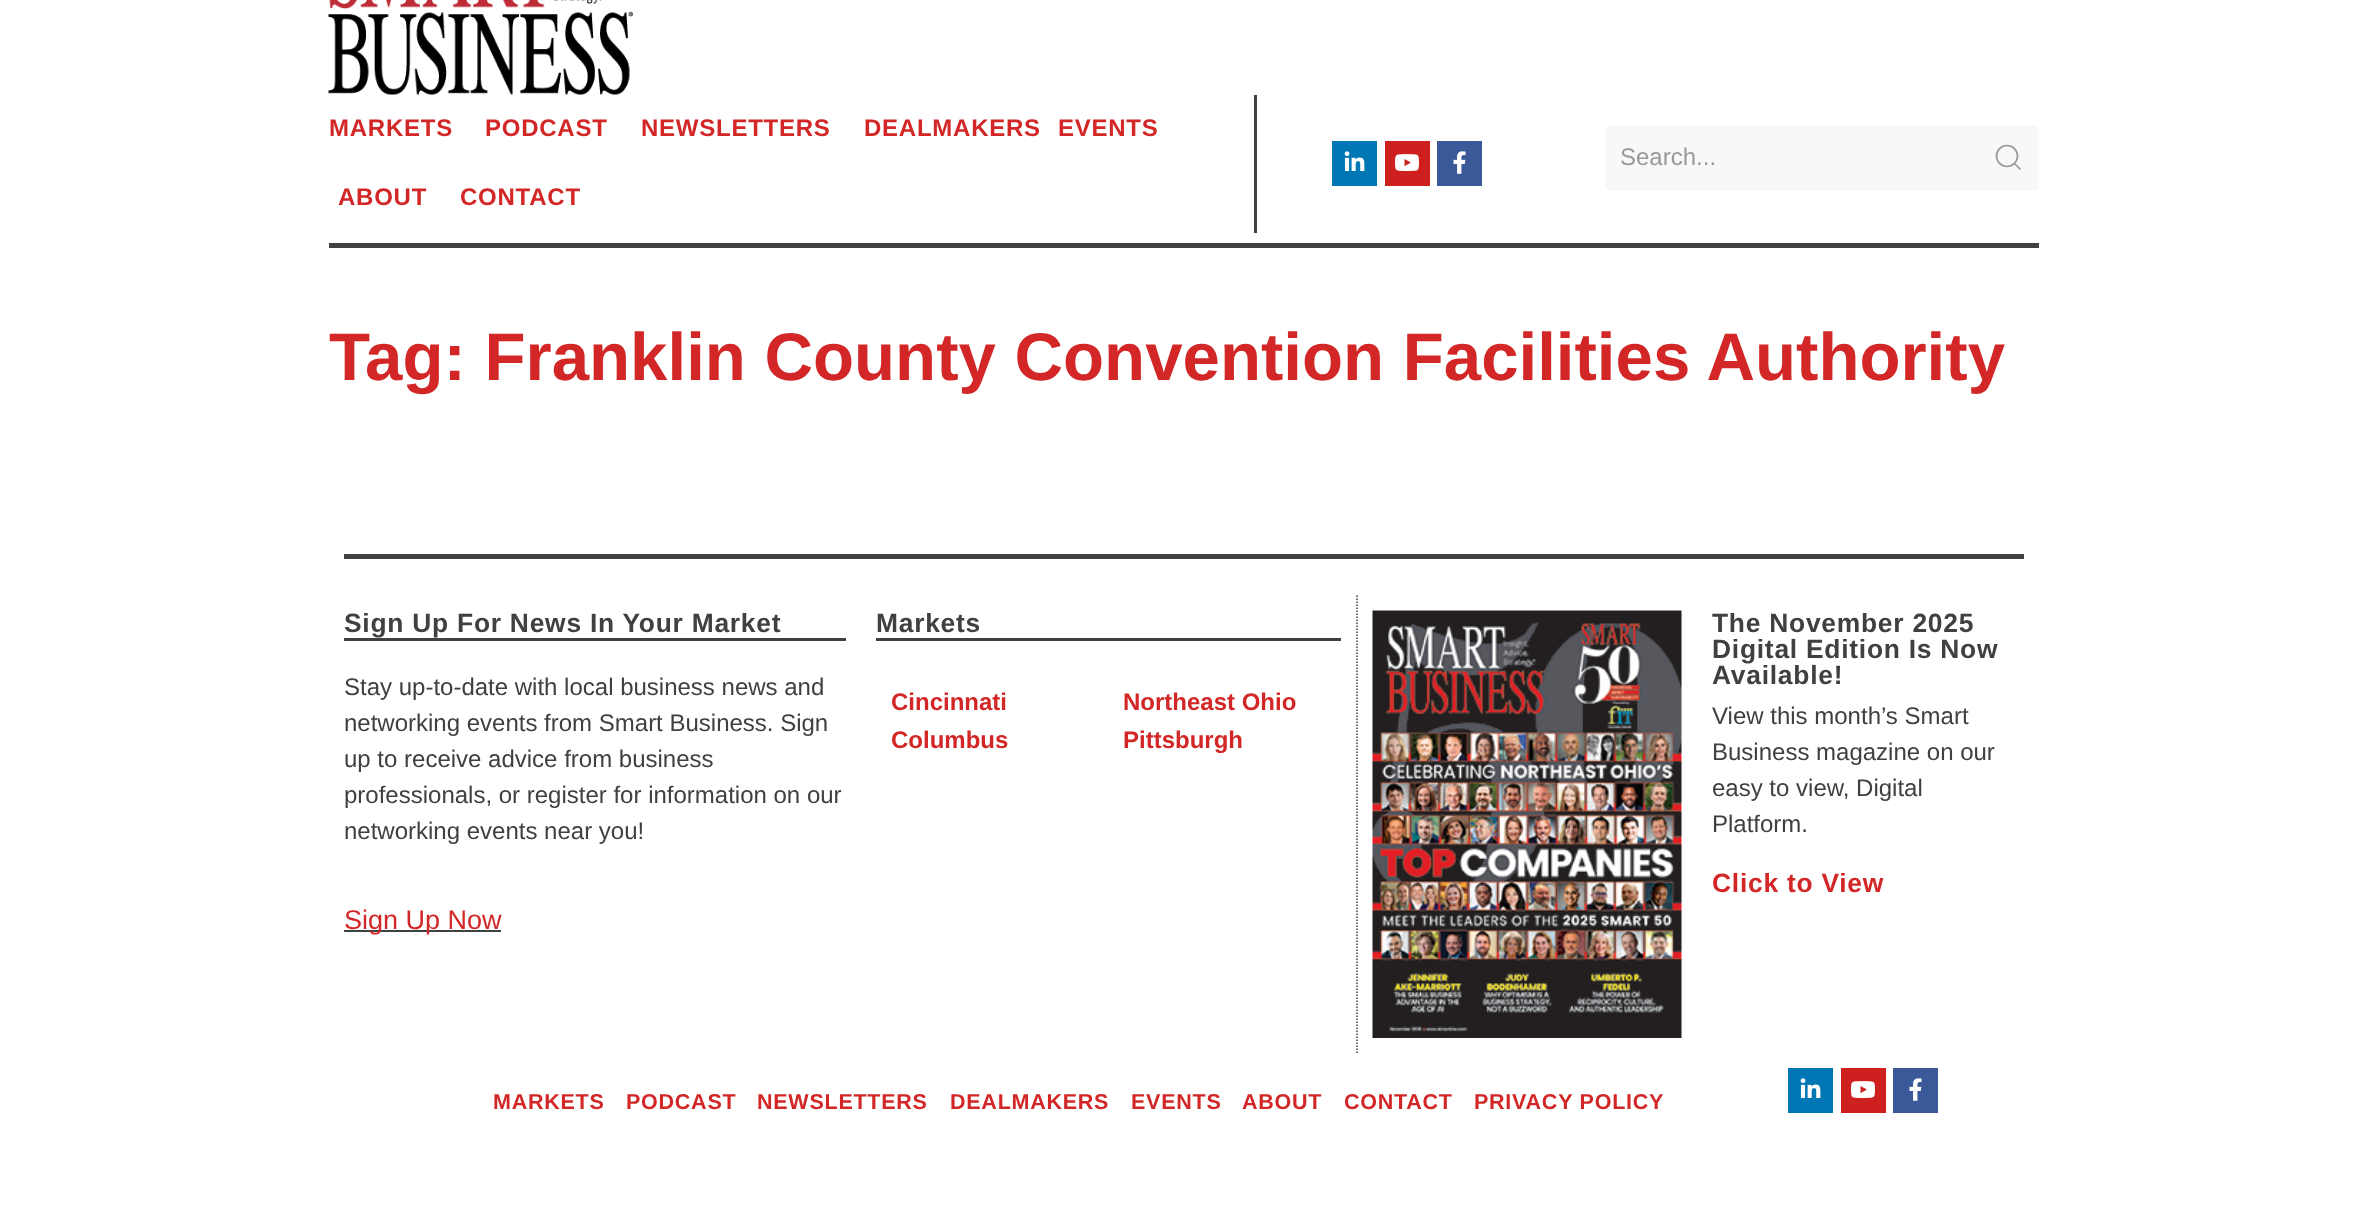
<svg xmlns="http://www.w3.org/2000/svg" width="2366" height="1209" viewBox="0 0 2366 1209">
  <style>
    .t1 { font: bold 24px Liberation Sans; letter-spacing: 0.75px; fill: #d32727; }
    .t2 { font: 24px Liberation Sans; fill: #999; }
    .t3 { font: bold 67.2px Liberation Sans; fill: #d32727; }
    .t4 { font: bold 26.4px Liberation Sans; letter-spacing: 0.75px; fill: #404040; }
    .t5 { font: 24px Liberation Sans; fill: #404040; }
    .t6 { font: 27px Liberation Sans; fill: #d32727; }
    .t7 { font: bold 24px Liberation Sans; fill: #d32727; }
    .t8 { font: bold 26.4px Liberation Sans; letter-spacing: 0.75px; fill: #d32727; }
    .t9 { font: bold 21.5px Liberation Sans; letter-spacing: 0.75px; fill: #d32727; }
  </style>
  <rect width="100%" height="100%" fill="#fff"/>
  <image x="328" y="0" width="305" height="95" href="images/1.png"/>
  <rect x="1254" y="95" width="3" height="138" fill="#404040"/>
  <text x="329" y="136" class="t1">MARKETS</text>
  <text x="485" y="136" class="t1">PODCAST</text>
  <text x="641" y="136" class="t1">NEWSLETTERS</text>
  <text x="864" y="136" class="t1">DEALMAKERS</text>
  <text x="1058" y="136" class="t1">EVENTS</text>
  <text x="338" y="205" class="t1">ABOUT</text>
  <text x="460" y="205" class="t1">CONTACT</text>
  <rect x="1332" y="141" width="45" height="45" fill="#0077b5"/>
  <image x="1344" y="151" width="21" height="20" href="images/2.png"/>
  <rect x="1385" y="141" width="45" height="45" fill="#cd201f"/>
  <image x="1395" y="154" width="24" height="17" href="images/3.png"/>
  <rect x="1437" y="141" width="45" height="45" fill="#3b5998"/>
  <image x="1453" y="151" width="13" height="23" href="images/4.png"/>
  <rect x="1605" y="125" width="434" height="66" rx="5" fill="#f8f8f8"/>
  <text x="1620" y="165" class="t2">Search...</text>
  <circle cx="2007" cy="156" r="10.5" fill="none" stroke="#999" stroke-width="1.7"/>
  <path d="M2014.5 163.5L2020.5 169.5Z" fill="none" stroke="#999" stroke-width="1.7"/>
  <rect x="329" y="243" width="1710" height="5" fill="#404040"/>
  <text x="329" y="380" class="t3">Tag: Franklin County Convention Facilities Authority</text>
  <rect x="344" y="554" width="1680" height="5" fill="#404040"/>
  <rect x="344" y="638" width="502" height="3" fill="#404040"/>
  <text x="344" y="632" class="t4">Sign Up For News In Your Market</text>
  <text x="344" y="695" class="t5">Stay up-to-date with local business news and</text>
  <text x="344" y="731" class="t5">networking events from Smart Business. Sign</text>
  <text x="344" y="767" class="t5">up to receive advice from business</text>
  <text x="344" y="803" class="t5">professionals, or register for information on our</text>
  <text x="344" y="839" class="t5">networking events near you!</text>
  <rect x="344" y="930" width="157" height="2" fill="#404040"/>
  <text x="344" y="929" class="t6">Sign Up Now</text>
  <rect x="876" y="638" width="465" height="3" fill="#404040"/>
  <text x="876" y="632" class="t4">Markets</text>
  <text x="891" y="710" class="t7">Cincinnati</text>
  <text x="891" y="748" class="t7">Columbus</text>
  <text x="1123" y="710" class="t7">Northeast Ohio</text>
  <text x="1123" y="748" class="t7">Pittsburgh</text>
  <path d="M1357 595.5V1053" fill="none" stroke="#404040" stroke-width="1.5" stroke-dasharray="1.5 1.5"/>
  <image x="1372" y="610" width="310" height="428" href="images/5.png"/>
  <text x="1712" y="632" class="t4">The November 2025</text>
  <text x="1712" y="658" class="t4">Digital Edition Is Now</text>
  <text x="1712" y="684" class="t4">Available!</text>
  <text x="1712" y="724" class="t5">View this month’s Smart</text>
  <text x="1712" y="760" class="t5">Business magazine on our</text>
  <text x="1712" y="796" class="t5">easy to view, Digital</text>
  <text x="1712" y="832" class="t5">Platform.</text>
  <text x="1712" y="892" class="t8">Click to View</text>
  <text x="493" y="1109" class="t9">MARKETS</text>
  <text x="626" y="1109" class="t9">PODCAST</text>
  <text x="757" y="1109" class="t9">NEWSLETTERS</text>
  <text x="950" y="1109" class="t9">DEALMAKERS</text>
  <text x="1131" y="1109" class="t9">EVENTS</text>
  <text x="1242" y="1109" class="t9">ABOUT</text>
  <text x="1344" y="1109" class="t9">CONTACT</text>
  <text x="1474" y="1109" class="t9">PRIVACY POLICY</text>
  <rect x="1788" y="1068" width="45" height="45" fill="#0077b5"/>
  <image x="1800" y="1078" width="21" height="20" href="images/2.png"/>
  <rect x="1841" y="1068" width="45" height="45" fill="#cd201f"/>
  <image x="1851" y="1081" width="24" height="17" href="images/3.png"/>
  <rect x="1893" y="1068" width="45" height="45" fill="#3b5998"/>
  <image x="1909" y="1078" width="13" height="23" href="images/4.png"/>
</svg>
